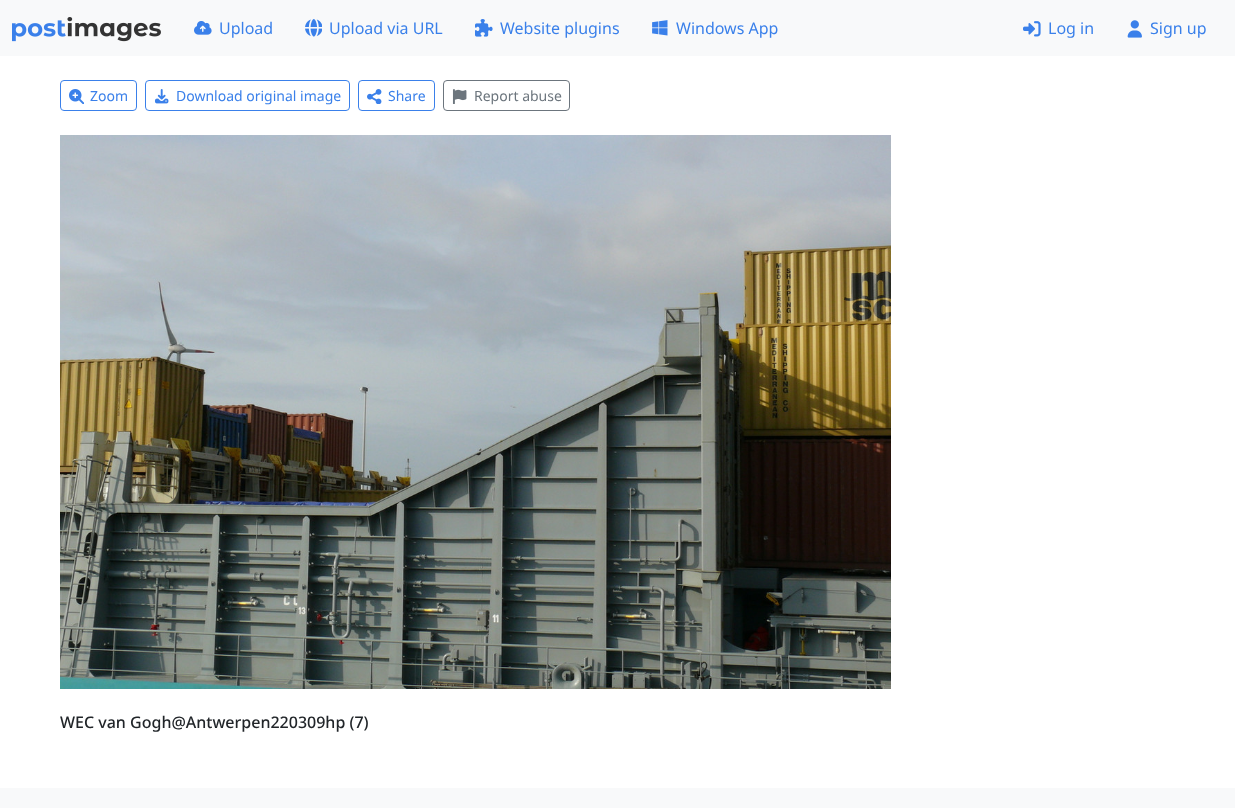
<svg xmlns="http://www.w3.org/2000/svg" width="1235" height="808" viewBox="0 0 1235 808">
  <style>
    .t1 { font: 16px Noto Sans; fill: #3a80ea; }
    .t2 { font: 14px Noto Sans; fill: #3a80ea; }
    .t3 { font: 14px Noto Sans; fill: #6c757d; }
    .t4 { font: 500 16px Noto Sans; fill: #212529; }
  </style>
  <rect width="100%" height="100%" fill="#fff"/>
  <rect x="0" y="0" width="1235" height="56" fill="#f8f9fa"/>
  <image x="12" y="17" width="149" height="25" href="images/1.png"/>
  <image x="194" y="21" width="18" height="14" href="images/2.png"/>
  <text x="219" y="34" class="t1">Upload</text>
  <image x="305" y="19" width="17" height="18" href="images/3.png"/>
  <text x="329" y="34" class="t1">Upload via URL</text>
  <image x="475" y="19" width="18" height="18" href="images/4.png"/>
  <text x="500" y="34" class="t1">Website plugins</text>
  <image x="652" y="20" width="16" height="16" href="images/5.png"/>
  <text x="676" y="34" class="t1">Windows App</text>
  <image x="1023" y="21" width="18" height="16" href="images/6.png"/>
  <text x="1048" y="34" class="t1">Log in</text>
  <image x="1127" y="20" width="15" height="18" href="images/7.png"/>
  <text x="1150" y="34" class="t1">Sign up</text>
  <rect x="60.5" y="80.5" width="76" height="30" rx="3.5" fill="none" stroke="#3a80ea"/>
  <image x="69" y="89" width="15" height="15" href="images/8.png"/>
  <text x="90" y="101" class="t2">Zoom</text>
  <rect x="145.5" y="80.5" width="204" height="30" rx="3.5" fill="none" stroke="#3a80ea"/>
  <image x="154" y="89" width="15" height="15" href="images/9.png"/>
  <text x="176" y="101" class="t2">Download original image</text>
  <rect x="358.5" y="80.5" width="76" height="30" rx="3.5" fill="none" stroke="#3a80ea"/>
  <image x="367" y="89" width="15" height="15" href="images/10.png"/>
  <text x="388" y="101" class="t2">Share</text>
  <rect x="443.5" y="80.5" width="126" height="30" rx="3.5" fill="none" stroke="#6c757d"/>
  <image x="452" y="89" width="15" height="15" href="images/11.png"/>
  <text x="474" y="101" class="t3">Report abuse</text>
  <image x="60" y="135" width="831" height="554" href="images/12.png"/>
  <text x="60" y="728" class="t4">WEC van Gogh@Antwerpen220309hp (7)</text>
  <rect x="0" y="788" width="1235" height="20" fill="#f8f9fa"/>
</svg>
